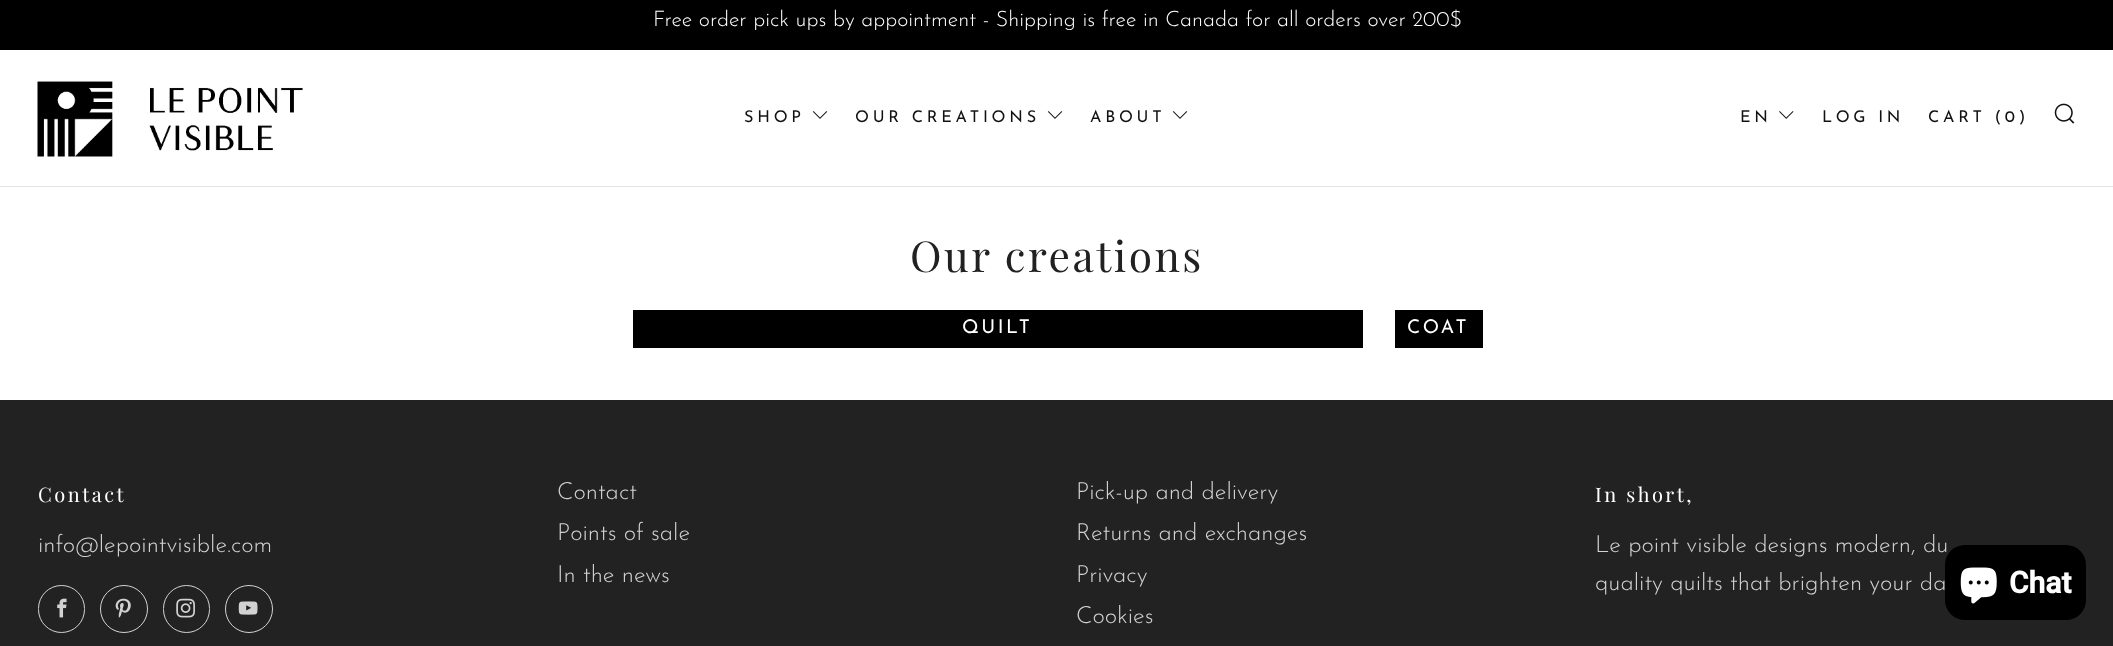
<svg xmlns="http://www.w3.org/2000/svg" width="2113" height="646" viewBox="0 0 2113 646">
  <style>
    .t1 { font: 300 21.4px Josefin Sans; fill: #fff; }
    .t2 { font: 16.25px Josefin Sans; letter-spacing: 3.75px; fill: #111; }
    .t3 { font: 42.5px Playfair Display; letter-spacing: 2.5px; fill: #212121; }
    .t4 { font: 19px Josefin Sans; letter-spacing: 2.5px; fill: #fff; }
    .t5 { font: 20px Playfair Display; letter-spacing: 2.5px; fill: #fff; }
    .t6 { font: 300 23.75px Josefin Sans; fill: #d3d3d3; }
    .t7 { font: bold 30px Roboto; fill: #fff; }
  </style>
  <rect width="100%" height="100%" fill="#fff"/>
  <rect x="0" y="0" width="2113" height="50" fill="#000"/>
  <text x="653" y="26" class="t1">Free order pick ups by appointment - Shipping is free in Canada for all orders over 200$</text>
  <rect x="0" y="186" width="2113" height="1" fill="#e4e4e4"/>
  <image x="37" y="81" width="266" height="76" href="images/1.png"/>
  <text x="744" y="122" class="t2">SHOP</text>
  <image x="812" y="111" width="16" height="8" href="images/2.png"/>
  <text x="855" y="122" class="t2">OUR CREATIONS</text>
  <image x="1047" y="111" width="16" height="8" href="images/2.png"/>
  <text x="1090" y="122" class="t2">ABOUT</text>
  <image x="1172" y="111" width="16" height="8" href="images/2.png"/>
  <text x="1740" y="122" class="t2">EN</text>
  <image x="1779" y="111" width="15" height="8" href="images/3.png"/>
  <text x="1822" y="122" class="t2">LOG IN</text>
  <text x="1928" y="122" class="t2">CART (0)</text>
  <image x="2054" y="103" width="21" height="21" href="images/4.png"/>
  <text x="910" y="272" class="t3">Our creations</text>
  <rect x="633" y="310" width="730" height="38" fill="#000"/>
  <text x="962" y="333" class="t4">QUILT</text>
  <rect x="1395" y="310" width="88" height="38" fill="#000"/>
  <text x="1407" y="333" class="t4">COAT</text>
  <rect x="0" y="400" width="2113" height="246" fill="#222"/>
  <text x="38" y="502" class="t5">Contact</text>
  <text x="38" y="552" class="t6">info@lepointvisible.com</text>
  <rect x="38.5" y="585.5" width="46" height="47" rx="23" fill="none" stroke="#d3d3d3"/>
  <image x="57" y="598" width="10" height="20" href="images/5.png"/>
  <circle cx="124" cy="609" r="23.5" fill="none" stroke="#d3d3d3"/>
  <image x="115" y="598" width="16" height="20" href="images/6.png"/>
  <rect x="163.5" y="585.5" width="46" height="47" rx="23" fill="none" stroke="#d3d3d3"/>
  <image x="176" y="598" width="19" height="20" href="images/7.png"/>
  <circle cx="249" cy="609" r="23.5" fill="none" stroke="#d3d3d3"/>
  <image x="238" y="601" width="20" height="14" href="images/8.png"/>
  <text x="557" y="499" class="t6">Contact</text>
  <text x="557" y="540" class="t6">Points of sale</text>
  <text x="557" y="582" class="t6">In the news</text>
  <text x="1076" y="499" class="t6">Pick-up and delivery</text>
  <text x="1076" y="540" class="t6">Returns and exchanges</text>
  <text x="1076" y="582" class="t6">Privacy</text>
  <text x="1076" y="623" class="t6">Cookies</text>
  <text x="1595" y="502" class="t5">In short,</text>
  <text x="1595" y="552" class="t6">Le point visible designs modern, du</text>
  <text x="1595" y="590" class="t6">quality quilts that brighten your da</text>
  <rect x="1945" y="545" width="141" height="75" rx="20" fill="#000"/>
  <image x="1960" y="567" width="37" height="37" href="images/9.png"/>
  <text x="2009" y="593" class="t7">Chat</text>
</svg>
